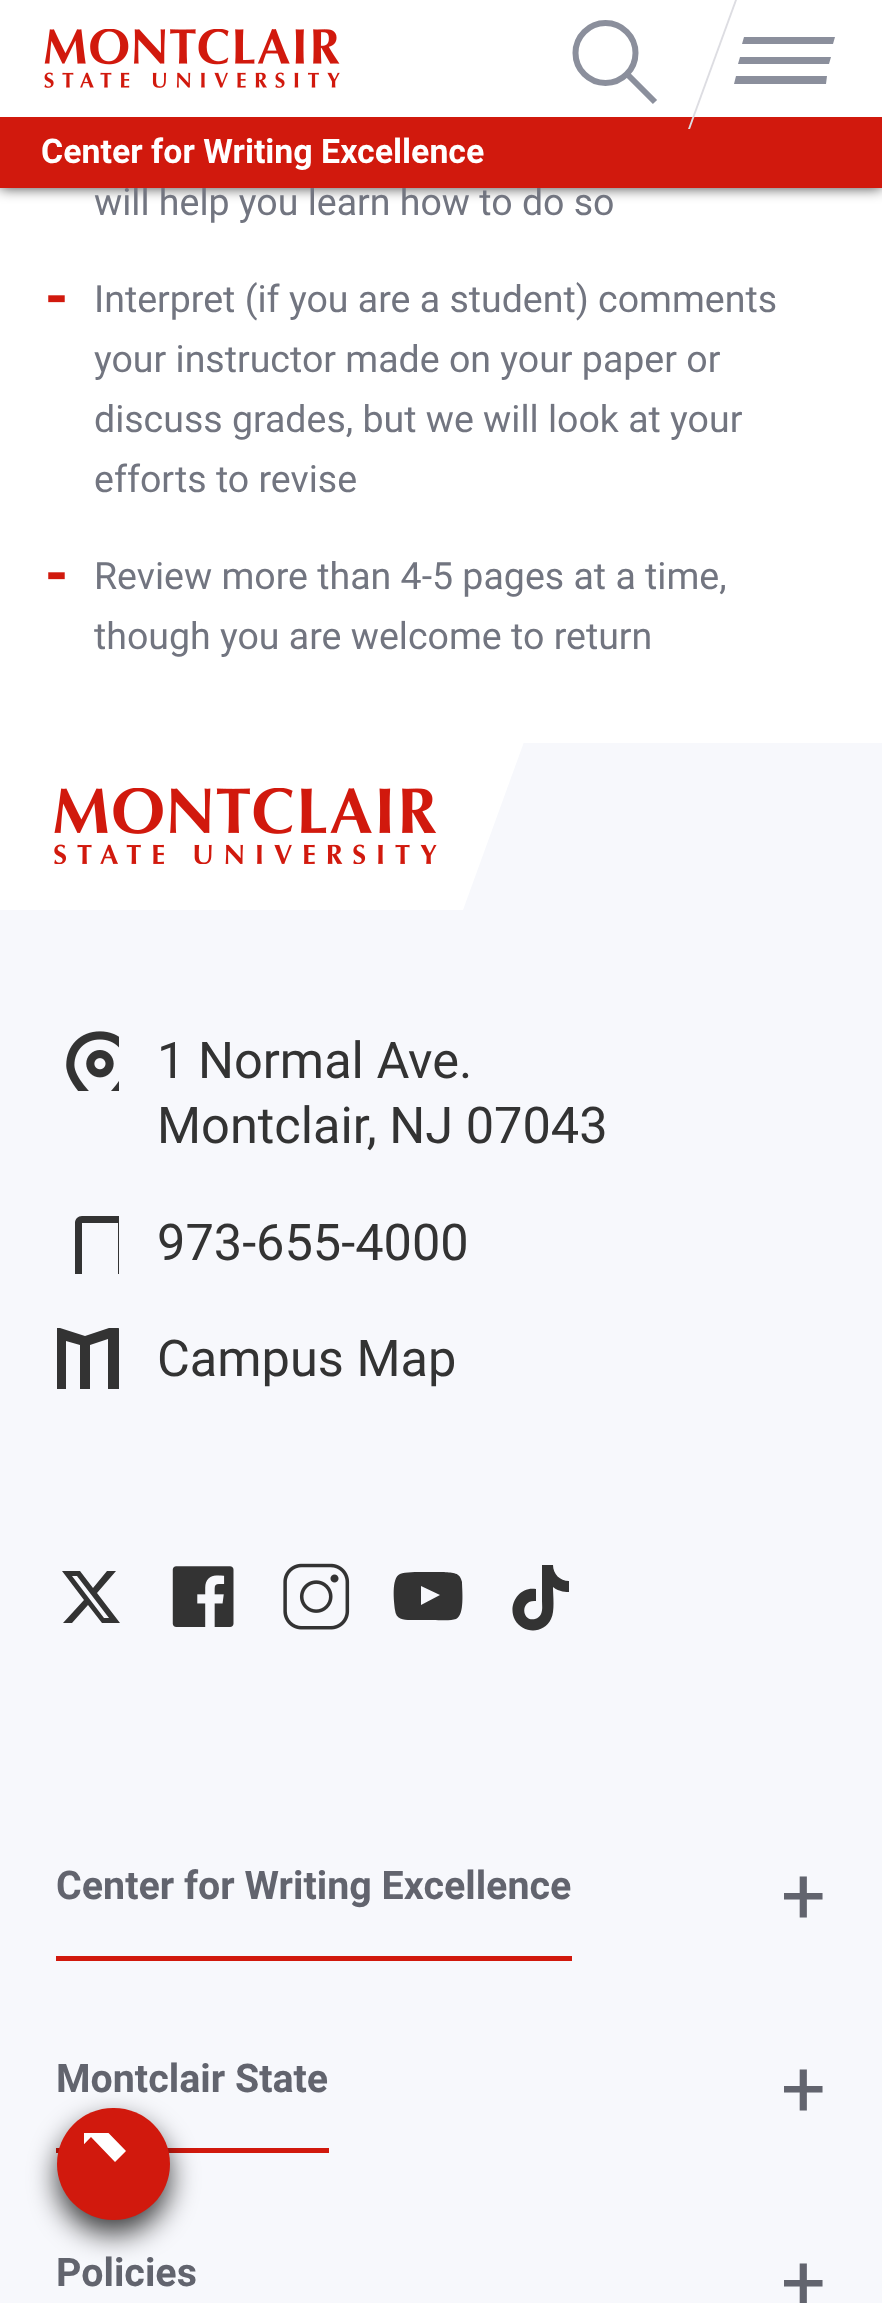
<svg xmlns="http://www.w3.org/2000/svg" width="882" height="2303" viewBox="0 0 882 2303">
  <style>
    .t1 { font: 37.5px Roboto; fill: #727580; }
    .t2 { font: bold 33.9px Roboto; fill: #fff; }
    .t3 { font: bold 60px Roboto; letter-spacing: -1px; fill: #d1190d; }
    .t4 { font: 50.5px Roboto; fill: #333; }
    .t5 { font: bold 39.4px Roboto; fill: #62646e; }
    .t6 { font: 79px Roboto; fill: #62646e; }
  </style>
  <defs>
    <clipPath id="clip1"><rect x="56" y="1211" width="63" height="63"/></clipPath>
    <clipPath id="clip2"><rect x="56" y="1326" width="63" height="63"/></clipPath>
    <clipPath id="clip3"><rect x="84" y="2133" width="56" height="56"/></clipPath>
  </defs>
  <rect width="100%" height="100%" fill="#fff"/>
  <rect x="0" y="0" width="882" height="188" fill="#000000bf" filter="blur(7px)"/>
  <rect x="0" y="0" width="882" height="117" fill="#fff"/>
  <circle cx="605.5" cy="53" r="30" fill="none" stroke="#8b8f9c" stroke-width="6"/>
  <path d="M655 102L626 73" fill="none" stroke="#8b8f9c" stroke-width="6"/>
  <text x="94" y="215" class="t1">will help you learn how to do so</text>
  <rect x="0" y="117" width="882" height="71" fill="#d1190d"/>
  <path d="M735 0H737L690 129H688Z" fill="#dddde2"/>
  <path d="M826 84H734L736 76H827M829 64H738L740 57H831M833 44H742L744 37H835" fill="#8b8f9c"/>
  <image x="44" y="29" width="296" height="59" href="images/1.png"/>
  <text x="41" y="163" class="t2">Center for Writing Excellence</text>
  <text x="45" y="317" class="t3">-</text>
  <text x="94" y="312" class="t1">Interpret (if you are a student) comments</text>
  <text x="94" y="372" class="t1">your instructor made on your paper or</text>
  <text x="94" y="432" class="t1">discuss grades, but we will look at your</text>
  <text x="94" y="492" class="t1">efforts to revise</text>
  <text x="45" y="594" class="t3">-</text>
  <text x="94" y="589" class="t1">Review more than 4-5 pages at a time,</text>
  <text x="94" y="649" class="t1">though you are welcome to return</text>
  <rect x="0" y="743" width="882" height="1560" fill="#f7f8fc"/>
  <path d="M-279 742H524L463 910H-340Z" fill="#fff"/>
  <image x="54" y="788" width="383" height="76" href="images/2.png"/>
  <image x="66" y="1031" width="53" height="60" href="images/3.png"/>
  <text x="157" y="1078" class="t4">1 Normal Ave.</text>
  <text x="157" y="1143" class="t4">Montclair, NJ 07043</text>
  <g clip-path="url(#clip1)">
    <path d="M118 1216H82C78 1216 75 1219 75 1223V1287C75 1291 78 1294 82 1294H118C122 1294 125 1291 125 1287V1223C125 1219 122 1216 118 1216M100 1288C95 1288 95 1280 100 1280C105 1280 105 1288 100 1288M118 1275H82V1223H118Z" fill="#333"/>
  </g>
  <text x="157" y="1260" class="t4">973-655-4000</text>
  <g clip-path="url(#clip2)">
    <path d="M118 1328H109L85 1336L60 1328H57V1405L80 1413H89L114 1405L139 1413H143V1336ZM80 1402L66 1398V1341L80 1345ZM108 1396L90 1402V1345L108 1339ZM134 1401L119 1396V1339L134 1344Z" fill="#333"/>
  </g>
  <text x="157" y="1376" class="t4">Campus Map</text>
  <path d="M107 1571H116L97 1593L120 1623H102L88 1605L72 1623H63L84 1600L62 1571H80L93 1588ZM104 1618H109L77 1576H72Z" fill="#333"/>
  <image x="172" y="1566" width="62" height="61" href="images/4.png"/>
  <image x="283" y="1563" width="67" height="67" href="images/5.png"/>
  <path d="M462 1582C460 1572 453 1573 444 1572H423C418 1572 405 1572 400 1574C391 1578 394 1602 395 1610C396 1621 406 1620 415 1620H433C439 1620 451 1621 456 1619C465 1615 462 1590 462 1582M421 1605V1586L440 1595Z" fill="#333"/>
  <path d="M553 1565C553 1574 560 1581 569 1581V1592C567 1592 559 1592 553 1587C553 1596 555 1611 551 1619C544 1634 523 1634 515 1620C507 1605 519 1586 536 1589V1601C520 1599 521 1622 535 1619C544 1616 542 1607 542 1601V1565Z" fill="#333" fill-rule="evenodd"/>
  <rect x="56" y="1956" width="516" height="5" fill="#d1190d"/>
  <text x="56" y="1899" class="t5">Center for Writing Excellence</text>
  <text x="781" y="1923" class="t6">+</text>
  <rect x="56" y="2148" width="273" height="5" fill="#d1190d"/>
  <text x="56" y="2092" class="t5">Montclair State</text>
  <text x="781" y="2116" class="t6">+</text>
  <text x="56" y="2286" class="t5">Policies</text>
  <text x="781" y="2310" class="t6">+</text>
  <rect x="57" y="2121" width="113" height="113" rx="56.5" fill="#000000bf" filter="blur(14px)"/>
  <rect x="57" y="2108" width="113" height="112" rx="56" fill="#d1190d"/>
  <g clip-path="url(#clip3)">
    <path d="M56 2151L91 2115L126 2151L115 2162L91 2137L67 2162Z" fill="#fff"/>
  </g>
</svg>
